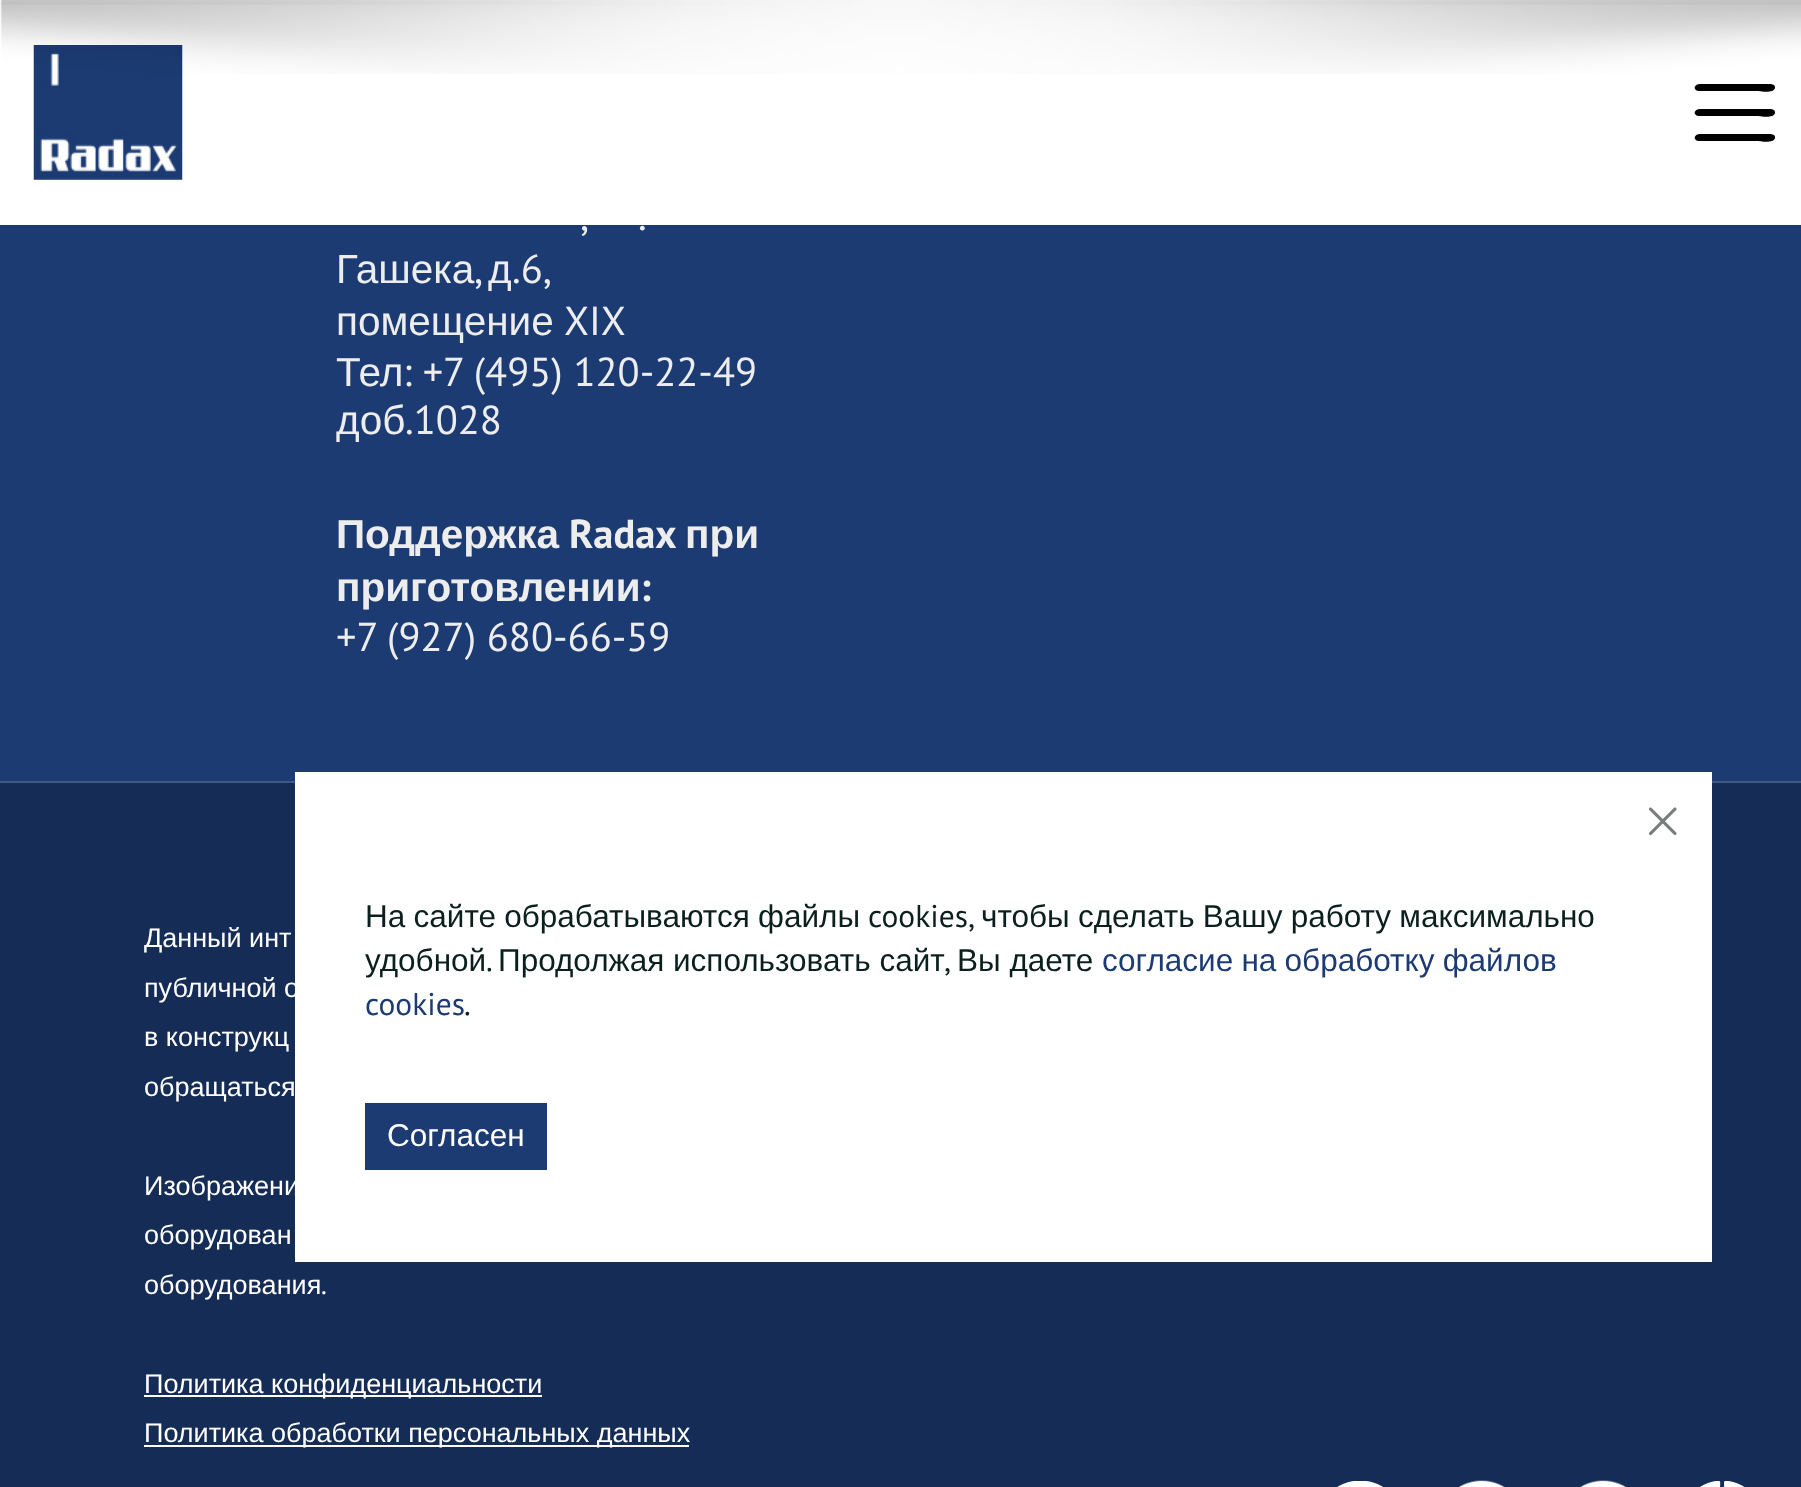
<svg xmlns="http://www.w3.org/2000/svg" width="1801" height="1487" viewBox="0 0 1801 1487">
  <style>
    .t1 { font: 40.5px PT Sans; fill: #ededed; }
    .t2 { font: 40.5px Liberation Sans; fill: #ededed; }
    .t3 { font: bold 40.5px Liberation Sans; fill: #ededed; }
    .t4 { font: bold 40.5px PT Sans; fill: #ededed; }
    .t5 { font: 27px Liberation Sans; fill: #fff; }
    .t6 { font: 27px PT Sans; fill: #fff; }
    .t7 { font: 31.5px Liberation Sans; fill: #0b201d; }
    .t8 { font: 31.5px PT Sans; fill: #0b201d; }
    .t9 { font: 31.5px Liberation Sans; fill: #1c3b73; }
    .t10 { font: 31.5px PT Sans; fill: #1c3b73; }
    .t11 { font: 31.5px Liberation Sans; fill: #fff; }
  </style>
  <rect width="100%" height="100%" fill="#1c3b73"/>
  <rect x="0" y="0" width="1801" height="225" fill="#fff"/>
  <image x="33" y="45" width="150" height="135" href="images/2.png"/>
  <image x="0" y="0" width="1801" height="74" href="images/1.png"/>
  <path d="M1700 84H1771L1774 85C1775 86 1775 87 1775 88C1774 94 1759 91 1758 91H1698C1692 89 1695 84 1700 84Z" fill="#000"/>
  <path d="M1700 109H1771L1774 110C1775 111 1775 112 1775 113C1774 119 1759 116 1758 116H1698C1692 114 1695 109 1700 109Z" fill="#000"/>
  <path d="M1700 134H1771L1774 135C1775 136 1775 137 1775 138C1774 144 1759 141 1758 141H1698C1692 139 1695 134 1700 134Z" fill="#000"/>
  <rect x="0" y="781" width="1801" height="2" fill="#3e5888"/>
  <text x="580" y="230" class="t1">,</text>
  <text x="638" y="230" class="t1">.</text>
  <text x="336" y="283" class="t2">Гашека</text>
  <text x="474" y="283" class="t1">,</text>
  <text x="488" y="283" class="t2">д</text>
  <text x="512" y="283" class="t1">.6,</text>
  <text x="336" y="335" class="t2">помещение</text>
  <text x="564" y="335" class="t1">XIX</text>
  <text x="336" y="386" class="t2">Тел</text>
  <text x="403" y="386" class="t1">: +7 (495) 120-22-49</text>
  <text x="336" y="434" class="t2">доб</text>
  <text x="405" y="434" class="t1">.1028</text>
  <text x="336" y="548" class="t3">Поддержка</text>
  <text x="569" y="548" class="t4">Radax</text>
  <text x="685" y="548" class="t3">при</text>
  <text x="336" y="601" class="t3">приготовлении</text>
  <text x="640" y="601" class="t4">:</text>
  <text x="336" y="651" class="t1">+7 (927) 680-66-59</text>
  <rect x="0" y="783" width="1801" height="704" fill="#152c56"/>
  <text x="144" y="947" class="t5">Данный инт</text>
  <text x="144" y="997" class="t5">публичной о</text>
  <text x="144" y="1046" class="t5">в конструкц</text>
  <text x="144" y="1096" class="t5">обращаться</text>
  <text x="144" y="1195" class="t5">Изображени</text>
  <text x="144" y="1244" class="t5">оборудован</text>
  <text x="144" y="1294" class="t5">оборудования</text>
  <text x="321" y="1294" class="t6">.</text>
  <rect x="144" y="1395" width="398" height="2" fill="#fff"/>
  <text x="144" y="1393" class="t5">Политика конфиденциальности</text>
  <rect x="144" y="1445" width="545" height="2" fill="#fff"/>
  <text x="144" y="1442" class="t5">Политика обработки персональных данных</text>
  <image x="1337" y="1481" width="46" height="6" href="images/3.png"/>
  <image x="1458" y="1480" width="47" height="7" href="images/4.png"/>
  <image x="1580" y="1480" width="46" height="7" href="images/5.png"/>
  <image x="1700" y="1481" width="45" height="6" href="images/6.png"/>
  <rect x="295" y="772" width="1417" height="490" fill="#fff"/>
  <image x="1648" y="807" width="29" height="29" href="images/7.png"/>
  <text x="365" y="927" word-spacing="-0.5" class="t7">На сайте обрабатываются файлы</text>
  <text x="868" y="927" class="t8">cookies,</text>
  <text x="981" y="927" word-spacing="-0.5" class="t7">чтобы сделать Вашу работу максимально</text>
  <text x="365" y="971" class="t7">удобной</text>
  <text x="486" y="971" class="t8">.</text>
  <text x="498" y="971" class="t7">Продолжая использовать сайт</text>
  <text x="944" y="971" class="t8">,</text>
  <text x="957" y="971" class="t7">Вы даете</text>
  <text x="1102" y="971" word-spacing="-0.5" class="t9">согласие на обработку файлов</text>
  <text x="365" y="1015" class="t10">cookies</text>
  <text x="464" y="1015" class="t8">.</text>
  <rect x="365" y="1103" width="182" height="67" fill="#1c3b73"/>
  <text x="387" y="1146" class="t11">Согласен</text>
</svg>
